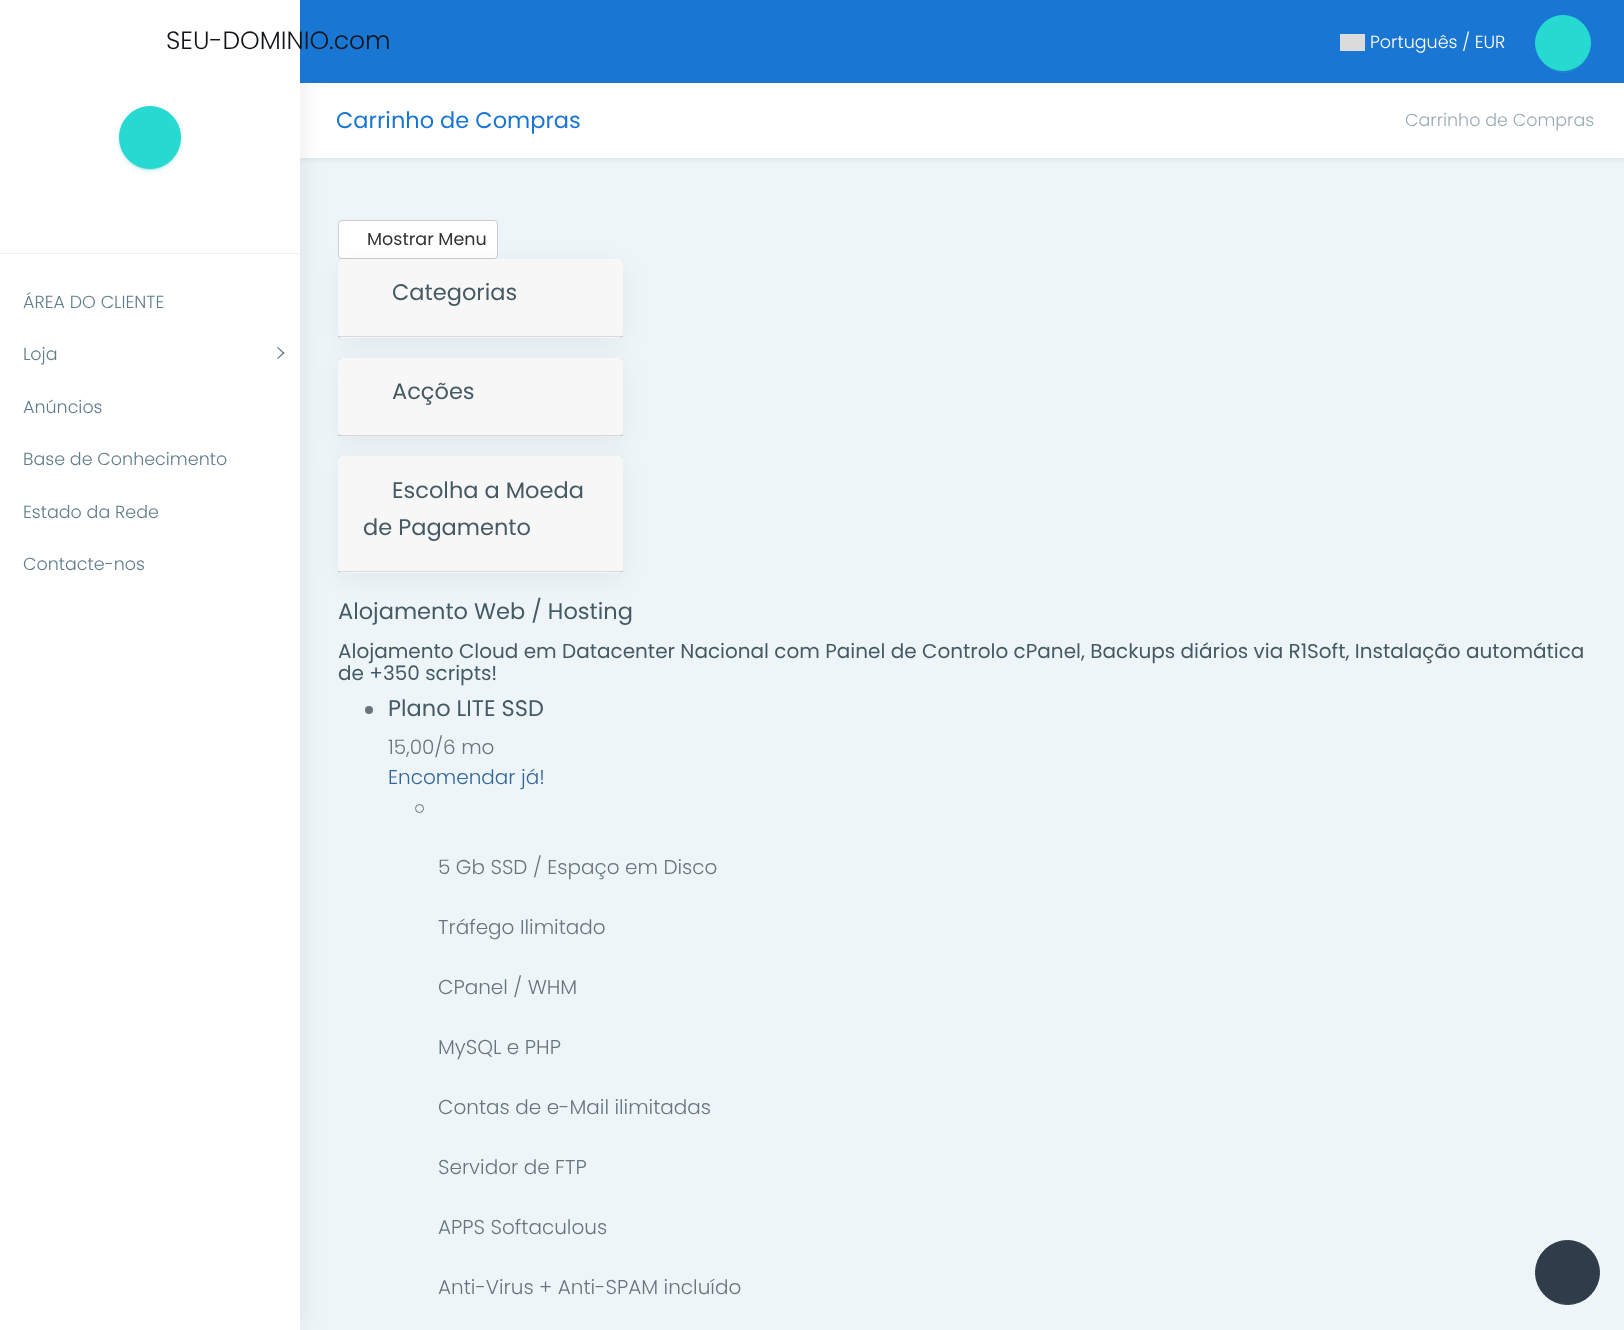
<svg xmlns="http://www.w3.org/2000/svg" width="1624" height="1330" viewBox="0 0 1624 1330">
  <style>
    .t1 { font: 300 25px Poppins; fill: #111418; }
    .t2 { font: 300 17.5px Poppins; fill: #fff; }
    .t3 { font: 300 17.5px Poppins; fill: #607d8b; }
    .t4 { font: 22.5px Poppins; fill: #1976d2; }
    .t5 { font: 300 17.5px Poppins; fill: #99abb4; }
    .t6 { font: 17.5px Poppins; fill: #333; }
    .t7 { font: 22.5px Poppins; fill: #455a64; }
    .t8 { font: 20px Poppins; fill: #455a64; }
    .t9 { font: 300 20px Poppins; fill: #67757c; }
    .t10 { font: 300 20px Poppins; fill: #369; }
  </style>
  <rect width="100%" height="100%" fill="#eef5f9"/>
  <rect x="301" y="83" width="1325" height="75" fill="#0000001a" filter="blur(3px)"/>
  <rect x="300" y="83" width="1324" height="75" fill="#fff"/>
  <rect x="338.5" y="220.5" width="159" height="38" rx="3.5" fill="#fff" stroke="#ccc"/>
  <rect x="338" y="265" width="285" height="79" rx="5" fill="#0000000d" filter="blur(12.5px)"/>
  <rect x="338" y="259" width="285" height="79" rx="5" fill="#fff"/>
  <rect x="338" y="259" width="285" height="79" fill="#00000008"/>
  <rect x="338" y="336" width="285" height="1" fill="#0000001f"/>
  <rect x="338" y="364" width="285" height="79" rx="5" fill="#0000000d" filter="blur(12.5px)"/>
  <rect x="338" y="358" width="285" height="78" rx="5" fill="#fff"/>
  <rect x="338" y="358" width="285" height="78" fill="#00000008"/>
  <rect x="338" y="435" width="285" height="1" fill="#0000001f"/>
  <rect x="338" y="463" width="285" height="116" rx="5" fill="#0000000d" filter="blur(12.5px)"/>
  <rect x="338" y="456" width="285" height="117" rx="5" fill="#fff"/>
  <rect x="338" y="456" width="285" height="117" fill="#00000008"/>
  <rect x="338" y="571" width="285" height="1" fill="#0000001f"/>
  <rect x="1" y="0" width="300" height="1330" fill="#00000014" filter="blur(12.5px)"/>
  <rect x="300" y="0" width="1324" height="83" fill="#1976d2"/>
  <rect x="0" y="0" width="300" height="1330" fill="#fff"/>
  <text x="166" y="49" class="t1">SEU-DOMINIO.com</text>
  <rect x="1340" y="34" width="25" height="17" fill="#888" filter="blur(0.5px)"/>
  <rect x="1340" y="34" width="25" height="17" fill="#dbdbdb"/>
  <text x="1370" y="48" class="t2">Português / EUR</text>
  <rect x="1538" y="21" width="51" height="52" rx="25.5" fill="#28bebd33" filter="blur(0.5px)"/>
  <circle cx="1563" cy="43" r="27.5" fill="#26dad2" stroke="#26dad2"/>
  <rect x="119" y="108" width="62" height="62" rx="31" fill="#28bebd1f" filter="blur(3px)"/>
  <rect x="121" y="113" width="58" height="57" rx="28.5" fill="#28bebd33" filter="blur(0.5px)"/>
  <rect x="119" y="109" width="62" height="62" rx="31" fill="#28bebd24" filter="blur(1px)"/>
  <rect x="119.5" y="106.5" width="61" height="62" rx="30.5" fill="#26dad2" stroke="#26dad2"/>
  <rect x="0" y="253" width="300" height="1" fill="#edeff0"/>
  <text x="23" y="308" class="t3">ÁREA DO CLIENTE</text>
  <text x="23" y="360" class="t3">Loja</text>
  <path d="M284.5 353L278 359L277 358.5L283.5 352Z" fill="#607d8b"/>
  <path d="M284.5 353L283.5 354L277 347.5L278 347Z" fill="#607d8b"/>
  <text x="23" y="413" class="t3">Anúncios</text>
  <text x="23" y="465" class="t3">Base de Conhecimento</text>
  <text x="23" y="518" class="t3">Estado da Rede</text>
  <text x="23" y="570" class="t3">Contacte-nos</text>
  <text x="336" y="128" class="t4">Carrinho de Compras</text>
  <text x="1405" y="126" class="t5">Carrinho de Compras</text>
  <circle cx="1567.5" cy="1272.5" r="32" fill="#2f3d4a" stroke="#2f3d4a"/>
  <text x="367" y="245" class="t6">Mostrar Menu</text>
  <text x="392" y="300" class="t7">Categorias</text>
  <text x="392" y="399" class="t7">Acções</text>
  <text x="392" y="498" class="t7">Escolha a Moeda</text>
  <text x="363" y="535" class="t7">de Pagamento</text>
  <text x="338" y="619" class="t7">Alojamento Web / Hosting</text>
  <text x="338" y="658" class="t8">Alojamento Cloud em Datacenter Nacional com Painel de Controlo cPanel, Backups diários via R1Soft, Instalação automática</text>
  <text x="338" y="680" class="t8">de +350 scripts!</text>
  <circle cx="369" cy="710" r="4" fill="#67757c"/>
  <text x="388" y="716" class="t7">Plano LITE SSD</text>
  <text x="388" y="754" class="t9">15,00/6 mo</text>
  <text x="388" y="784" class="t10">Encomendar já!</text>
  <circle cx="419.5" cy="808.5" r="4" fill="none" stroke="#67757c"/>
  <text x="438" y="874" class="t9">5 Gb SSD / Espaço em Disco</text>
  <text x="438" y="934" class="t9">Tráfego Ilimitado</text>
  <text x="438" y="994" class="t9">CPanel / WHM</text>
  <text x="438" y="1054" class="t9">MySQL e PHP</text>
  <text x="438" y="1114" class="t9">Contas de e-Mail ilimitadas</text>
  <text x="438" y="1174" class="t9">Servidor de FTP</text>
  <text x="438" y="1234" class="t9">APPS Softaculous</text>
  <text x="438" y="1294" class="t9">Anti-Virus + Anti-SPAM incluído</text>
</svg>
